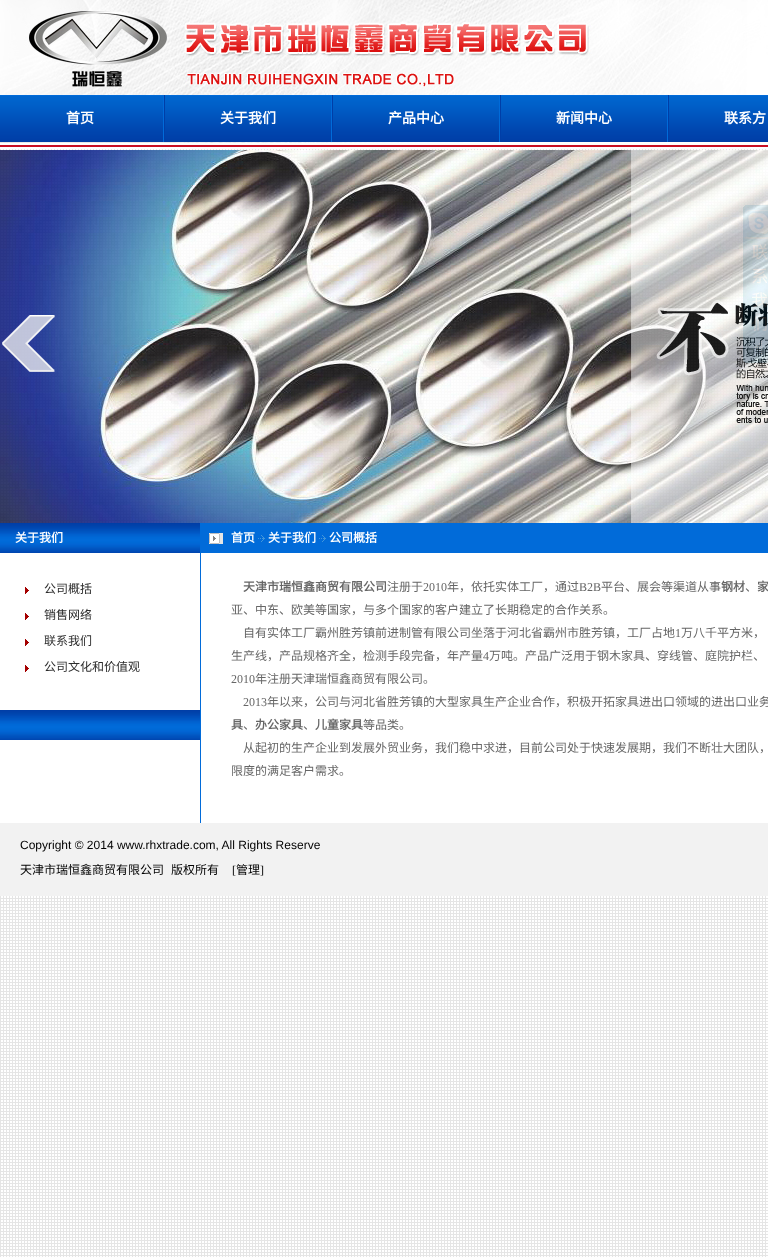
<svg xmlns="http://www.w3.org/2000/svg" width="768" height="1257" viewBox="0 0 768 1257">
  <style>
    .t1 { font: bold 14px Noto Sans CJK SC; fill: #fff; }
    .t2 { font: bold 12px Noto Sans CJK SC; fill: #fff; }
    .t3 { font: 12px Noto Sans CJK SC; fill: #2c2c2c; }
    .t4 { font: bold 12px Noto Sans CJK SC; fill: #666; }
    .t5 { font: 12px Noto Sans CJK SC; fill: #666; }
    .t6 { font: 12px Liberation Serif; fill: #666; }
    .t7 { font: 12px Liberation Sans; fill: #000; }
    .t8 { font: 12px Noto Sans CJK SC; fill: #000; }
    .t9 { font: 12px Liberation Serif; fill: #000; }
  </style>
  <rect width="100%" height="100%" fill="#fff"/>
  <image x="0" y="149" width="768" height="1108" href="images/1.png"/>
  <image x="0" y="0" width="768" height="149" href="images/2.png"/>
  <image x="0" y="95" width="768" height="47" href="images/3.png"/>
  <text x="66" y="123" class="t1">首页</text>
  <image x="163" y="95" width="2" height="47" href="images/4.png"/>
  <text x="220" y="123" class="t1">关于我们</text>
  <image x="331" y="95" width="2" height="47" href="images/4.png"/>
  <text x="388" y="123" class="t1">产品中心</text>
  <image x="499" y="95" width="2" height="47" href="images/4.png"/>
  <text x="556" y="123" class="t1">新闻中心</text>
  <image x="667" y="95" width="2" height="47" href="images/4.png"/>
  <text x="724" y="123" class="t1">联系方</text>
  <image x="743" y="205" width="25" height="158" href="images/7.png"/>
  <image x="0" y="150" width="768" height="373" href="images/5.png"/>
  <image x="2" y="315" width="53" height="57" href="images/6.png"/>
  <rect x="0" y="553" width="768" height="270" fill="#fff"/>
  <image x="0" y="523" width="200" height="30" href="images/8.png"/>
  <text x="15" y="542" class="t2">关于我们</text>
  <image x="25" y="587" width="4" height="7" href="images/9.png"/>
  <text x="44" y="593" class="t3">公司概括</text>
  <image x="25" y="613" width="4" height="7" href="images/9.png"/>
  <text x="44" y="619" class="t3">销售网络</text>
  <image x="25" y="639" width="4" height="7" href="images/9.png"/>
  <text x="44" y="645" class="t3">联系我们</text>
  <image x="25" y="665" width="4" height="7" href="images/9.png"/>
  <text x="44" y="671" class="t3">公司文化和价值观</text>
  <image x="0" y="710" width="200" height="30" href="images/8.png"/>
  <rect x="200" y="523" width="1" height="300" fill="#016bd9"/>
  <rect x="201" y="523" width="567" height="30" fill="#016bd9"/>
  <image x="209" y="533" width="14" height="11" href="images/10.png"/>
  <text x="231" y="542" class="t2">首页</text>
  <image x="258" y="535" width="7" height="7" href="images/11.png"/>
  <text x="268" y="542" class="t2">关于我们</text>
  <image x="319" y="535" width="7" height="7" href="images/11.png"/>
  <text x="329" y="542" class="t2">公司概括</text>
  <text x="243" y="591" class="t4">天津市瑞恒鑫商贸有限公司</text>
  <text x="387" y="591" class="t5">注册于</text>
  <text x="423" y="591" class="t6">2010</text>
  <text x="447" y="591" class="t5">年，依托实体工厂，通过</text>
  <text x="579" y="591" class="t6">B2B</text>
  <text x="601" y="591" class="t5">平台、展会等渠道从事</text>
  <text x="721" y="591" class="t4">钢材</text>
  <text x="745" y="591" class="t5">、</text>
  <text x="757" y="591" class="t4">家</text>
  <text x="231" y="614" class="t5">亚、中东、欧美等国家，与多个国家的客户建立了长期稳定的合作关系。</text>
  <text x="243" y="637" class="t5">自有实体工厂霸州胜芳镇前进制管有限公司坐落于河北省霸州市胜芳镇，工厂占地</text>
  <text x="675" y="637" class="t6">1</text>
  <text x="681" y="637" class="t5">万八千平方米，</text>
  <text x="231" y="660" class="t5">生产线，产品规格齐全，检测手段完备，年产量</text>
  <text x="483" y="660" class="t6">4</text>
  <text x="489" y="660" class="t5">万吨。产品广泛用于钢木家具、穿线管、庭院护栏、</text>
  <text x="231" y="683" class="t6">2010</text>
  <text x="255" y="683" class="t5">年注册天津瑞恒鑫商贸有限公司。</text>
  <text x="243" y="706" class="t6">2013</text>
  <text x="267" y="706" class="t5">年以来，公司与河北省胜芳镇的大型家具生产企业合作，积极开拓家具进出口领域的进出口业务</text>
  <text x="231" y="729" class="t4">具</text>
  <text x="243" y="729" class="t5">、</text>
  <text x="255" y="729" class="t4">办公家具</text>
  <text x="303" y="729" class="t5">、</text>
  <text x="315" y="729" class="t4">儿童家具</text>
  <text x="363" y="729" class="t5">等品类。</text>
  <text x="243" y="752" class="t5">从起初的生产企业到发展外贸业务，我们稳中求进，目前公司处于快速发展期，我们不断壮大团队，</text>
  <text x="231" y="775" class="t5">限度的满足客户需求。</text>
  <rect x="0" y="823" width="768" height="73" fill="#f2f2f2"/>
  <text x="20" y="849" class="t7">Copyright © 2014 www.rhxtrade.com, All Rights Reserve</text>
  <text x="20" y="874" class="t8">天津市瑞恒鑫商贸有限公司</text>
  <text x="171" y="874" class="t8">版权所有</text>
  <text x="232" y="874" class="t9">[</text>
  <text x="236" y="874" class="t8">管理</text>
  <text x="260" y="874" class="t9">]</text>
</svg>
